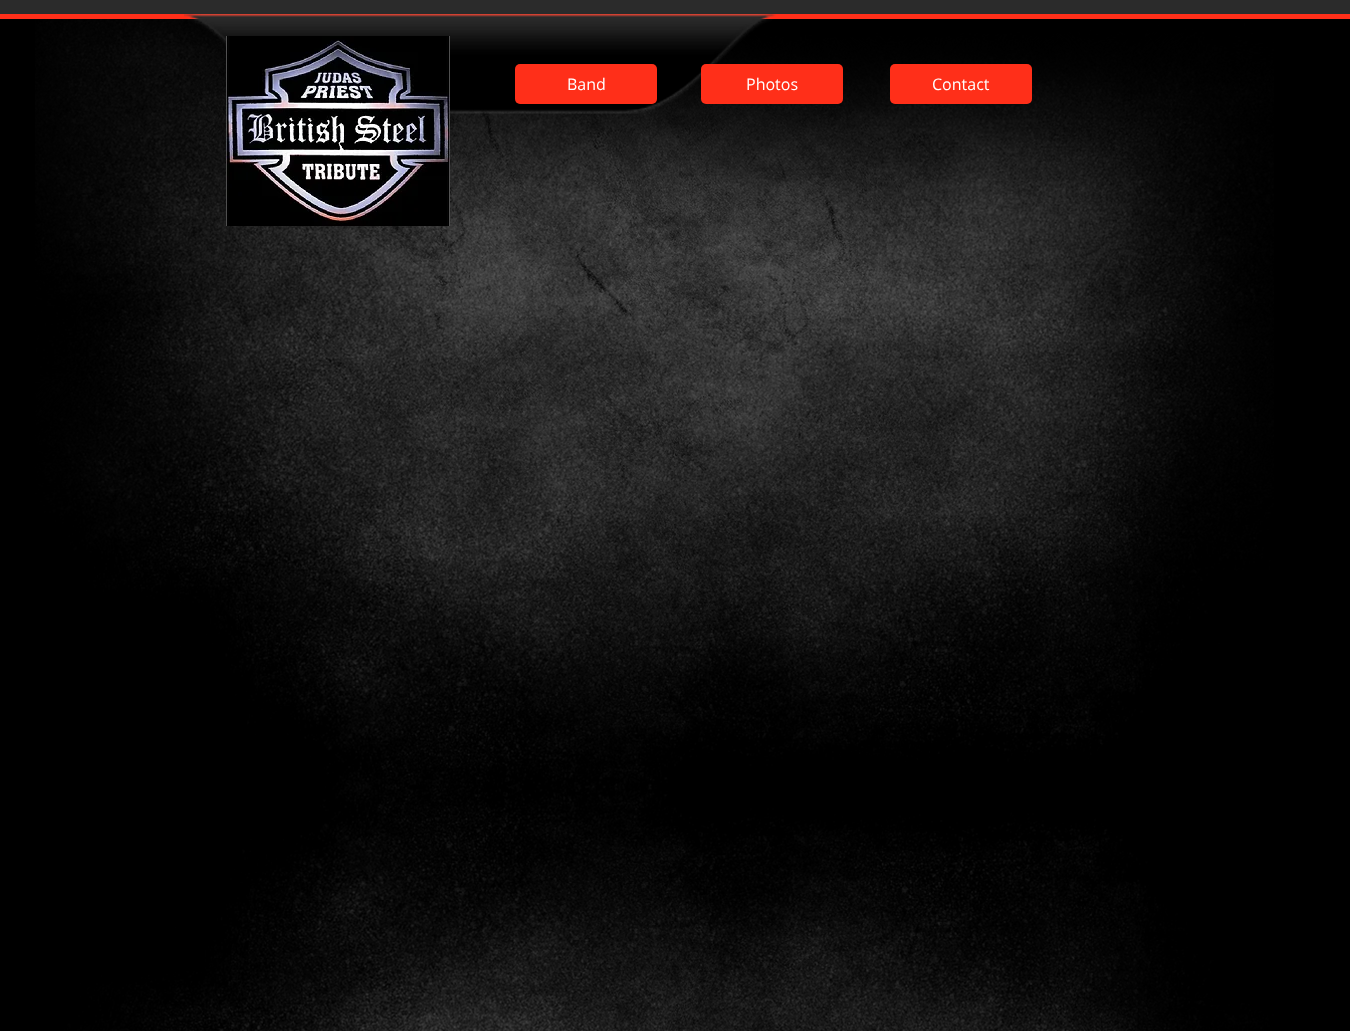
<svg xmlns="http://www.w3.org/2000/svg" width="1350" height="1031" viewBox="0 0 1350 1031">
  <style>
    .t1 { font: 16px Open Sans; fill: #fff; }
  </style>
  <rect width="100%" height="100%" fill="#000"/>
  <image x="35" y="19" width="1239" height="1012" href="images/1.png"/>
  <rect x="0" y="0" width="1350" height="14" fill="#2b2b2b"/>
  <rect x="0" y="14" width="1350" height="5" fill="#ff2f19"/>
  <image x="184" y="14" width="592" height="100" href="images/2.png"/>
  <image x="226" y="36" width="224" height="190" href="images/3.png"/>
  <rect x="515" y="64" width="142" height="40" rx="5" fill="#ff2f19"/>
  <text x="567" y="90" class="t1">Band</text>
  <rect x="701" y="64" width="142" height="40" rx="5" fill="#ff2f19"/>
  <text x="746" y="90" class="t1">Photos</text>
  <rect x="890" y="64" width="142" height="40" rx="5" fill="#ff2f19"/>
  <text x="932" y="90" class="t1">Contact</text>
</svg>
